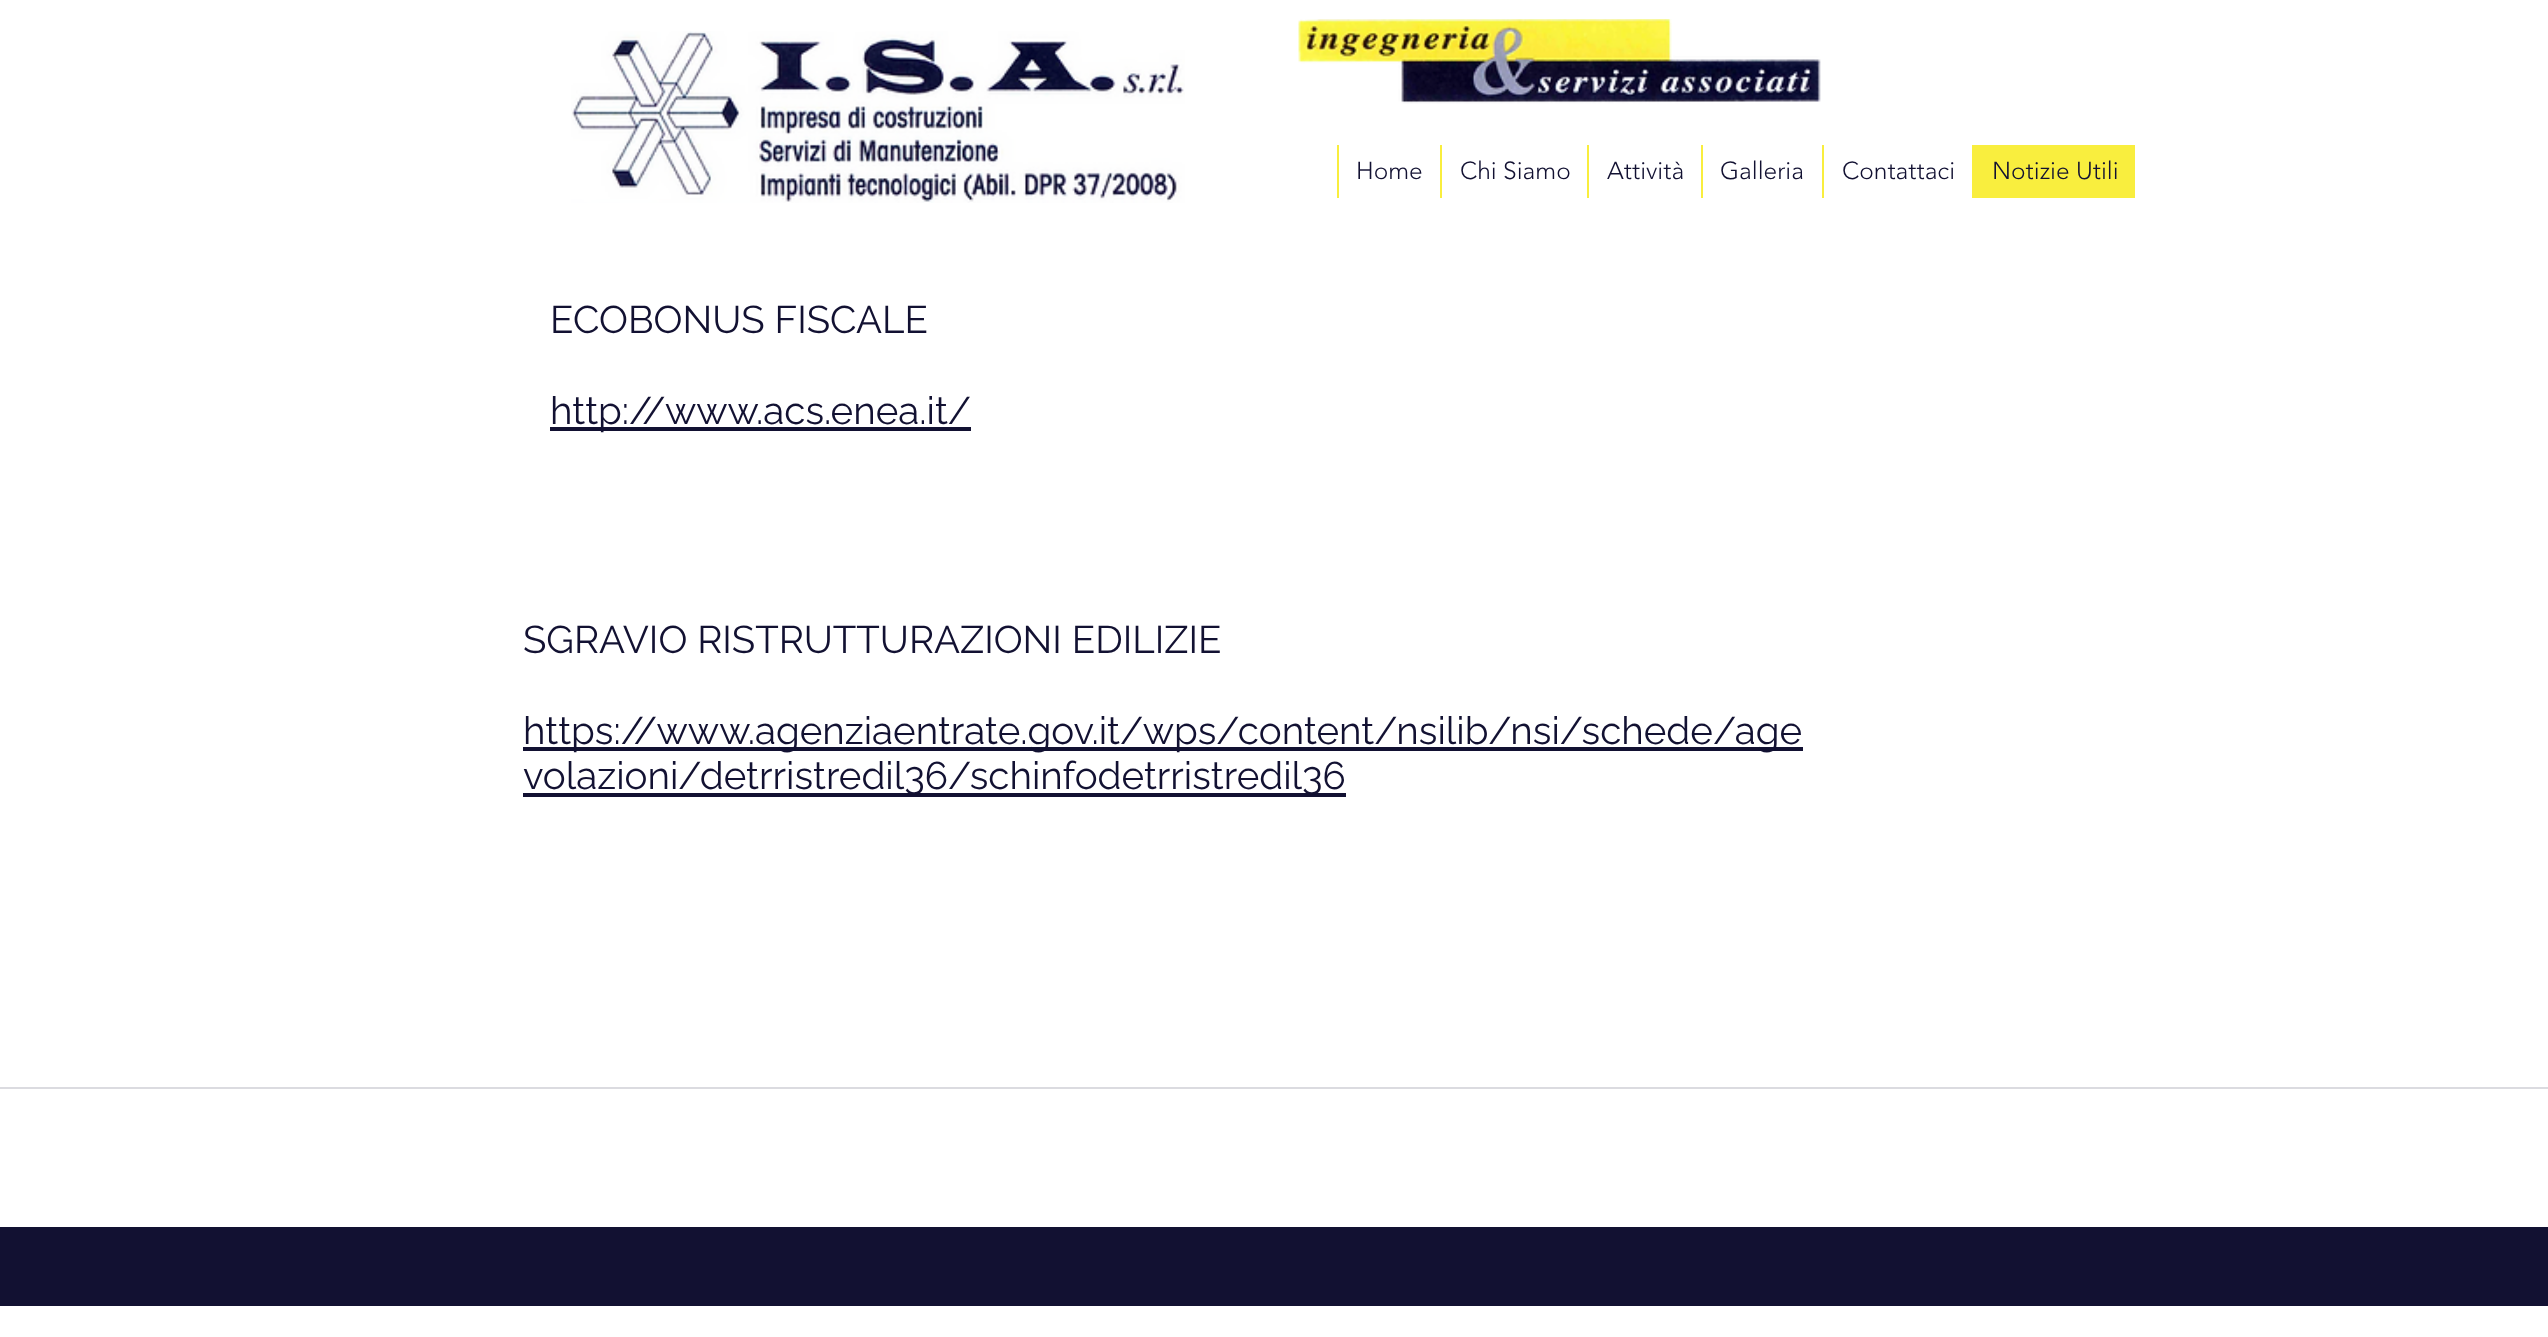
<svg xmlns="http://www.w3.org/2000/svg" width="2548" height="1337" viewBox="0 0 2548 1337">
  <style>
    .t1 { font: 300 24.5px 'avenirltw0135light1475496'; fill: #121132; }
    .t2 { font: 38.5px Raleway; fill: #121132; }
  </style>
  <rect width="100%" height="100%" fill="#fff"/>
  <image x="571" y="31" width="614" height="172" href="images/1.png"/>
  <image x="1298" y="19" width="523" height="85" href="images/2.png"/>
  <rect x="1337" y="145" width="2" height="53" fill="#f9ee3e"/>
  <text x="1356" y="179" class="t1">Home</text>
  <rect x="1440" y="145" width="2" height="53" fill="#f9ee3e"/>
  <text x="1460" y="179" class="t1">Chi Siamo</text>
  <rect x="1587" y="145" width="2" height="53" fill="#f9ee3e"/>
  <text x="1607" y="179" class="t1">Attività</text>
  <rect x="1701" y="145" width="2" height="53" fill="#f9ee3e"/>
  <text x="1720" y="179" class="t1">Galleria</text>
  <rect x="1822" y="145" width="2" height="53" fill="#f9ee3e"/>
  <text x="1842" y="179" class="t1">Contattaci</text>
  <rect x="1972" y="145" width="163" height="53" fill="#f9ee3e"/>
  <text x="1992" y="179" class="t1">Notizie Utili</text>
  <text x="550" y="333" class="t2">ECOBONUS FISCALE</text>
  <rect x="550" y="427" width="421" height="4" fill="#121132"/>
  <text x="550" y="424" class="t2">http://www.acs.enea.it/</text>
  <text x="523" y="653" class="t2">SGRAVIO RISTRUTTURAZIONI EDILIZIE</text>
  <rect x="523" y="747" width="1280" height="4" fill="#121132"/>
  <text x="523" y="744" class="t2">https://www.agenziaentrate.gov.it/wps/content/nsilib/nsi/schede/age</text>
  <rect x="523" y="793" width="823" height="4" fill="#121132"/>
  <text x="523" y="789" class="t2">volazioni/detrristredil36/schinfodetrristredil36</text>
  <rect x="0" y="1087" width="2548" height="2" fill="#dbdbe0"/>
  <rect x="0" y="1227" width="2548" height="79" fill="#121132"/>
</svg>
